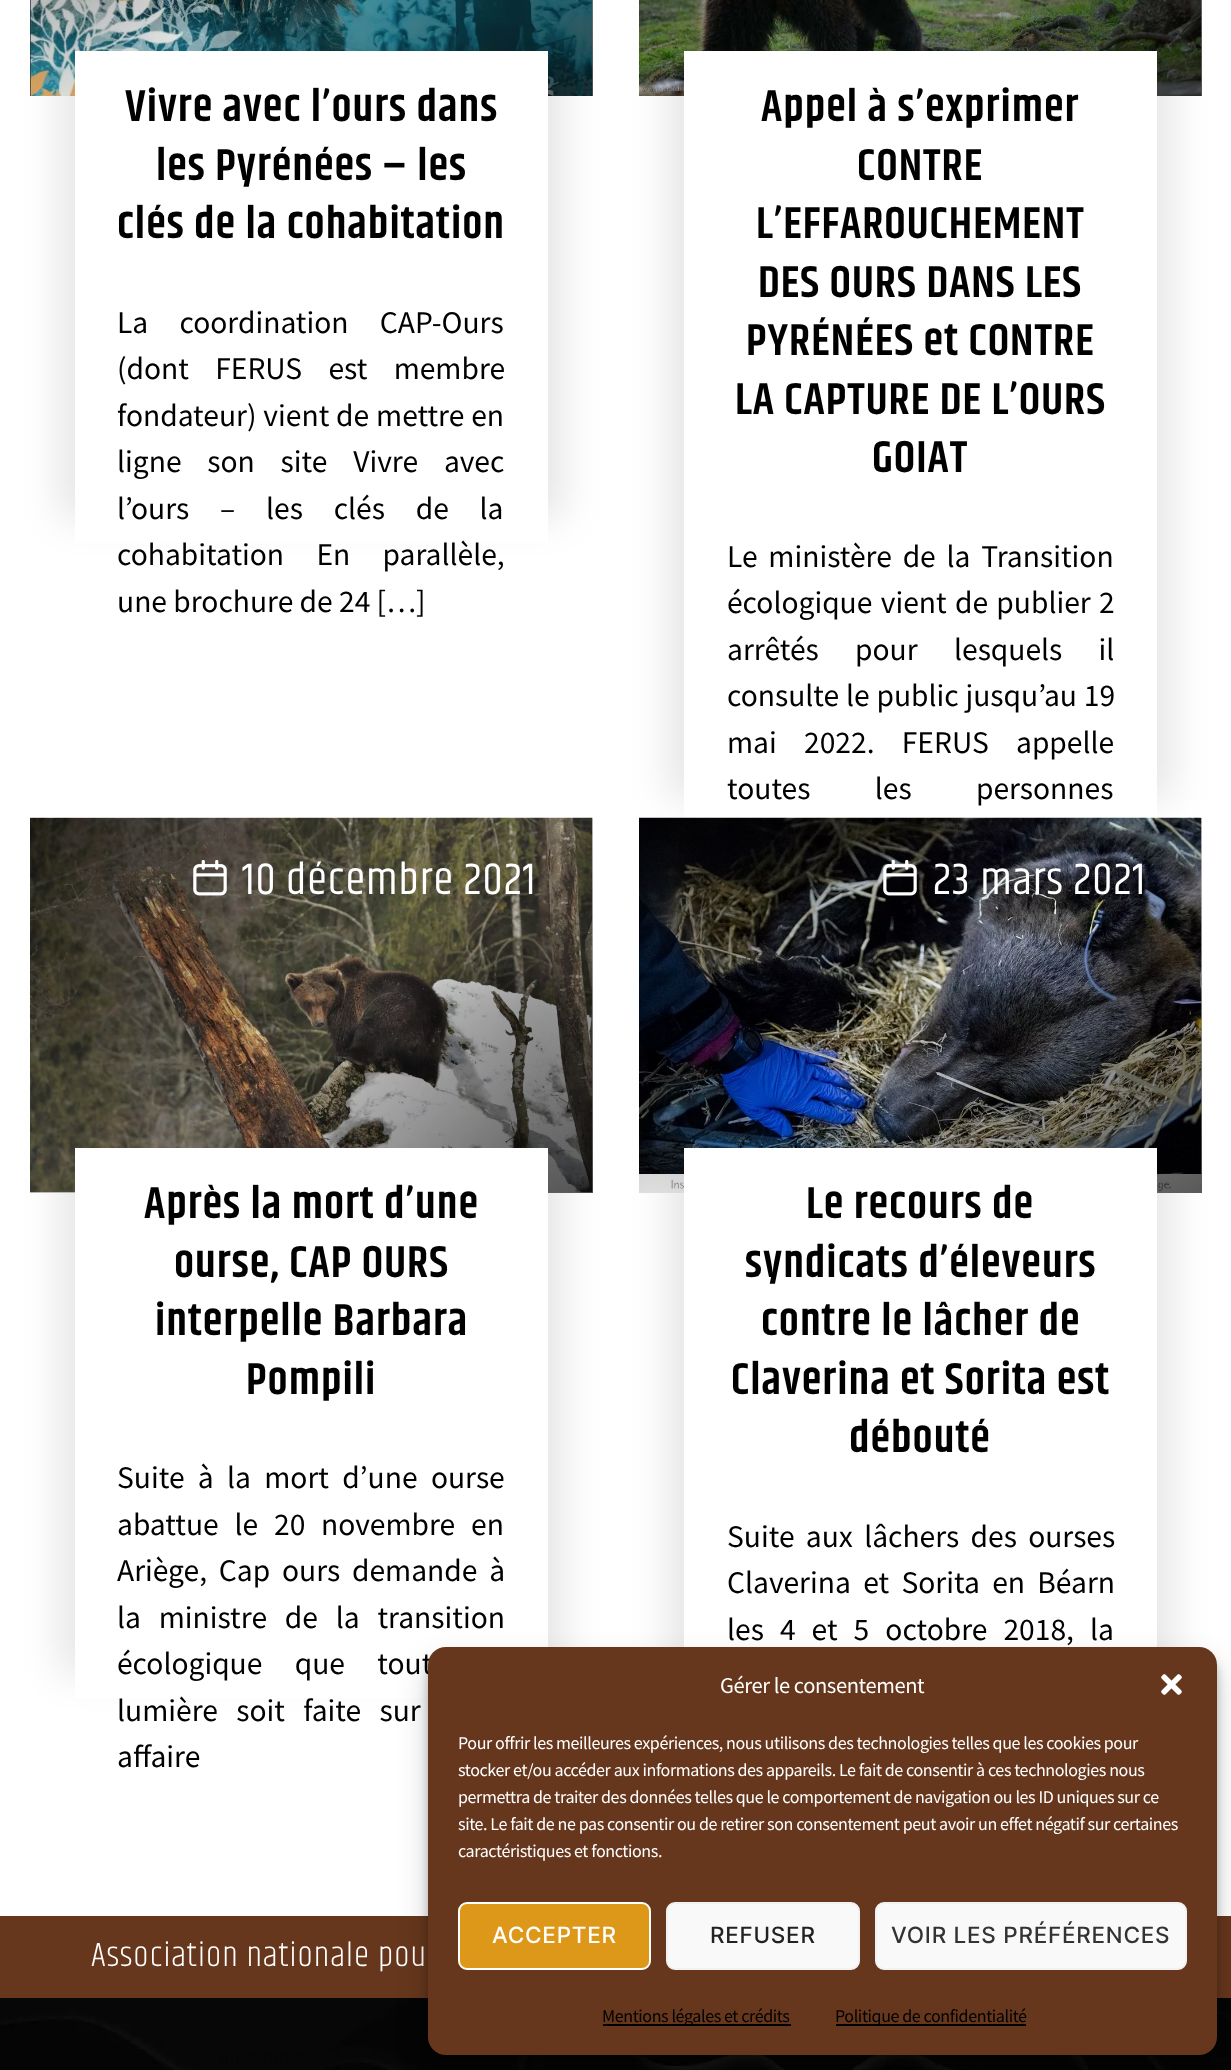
<svg xmlns="http://www.w3.org/2000/svg" width="1231" height="2070" viewBox="0 0 1231 2070">
  <style>
    .t1 { font: 600 45px Khand; letter-spacing: 1px; fill: #000; }
    .t2 { font: 31.5px Source Sans Pro; fill: #000; }
    .t3 { font: 45px Khand; letter-spacing: 1px; fill: #fff; }
    .t4 { font: 300 34.5px Khand; letter-spacing: 1.1px; fill: #fff; }
    .t5 { font: 22.5px Source Sans Pro; letter-spacing: -0.41px; fill: #fff; }
    .t6 { font: 18px Source Sans Pro; letter-spacing: -0.41px; fill: #fff; }
    .t7 { font: 500 22.5px Inter; letter-spacing: 0.75px; fill: #fff; }
    .t8 { font: 500 22.5px Inter; letter-spacing: 0.75px; fill: #222; }
    .t9 { font: 500 22.5px Inter; letter-spacing: 0.75px; fill: #333; }
    .t10 { font: 18px Source Sans Pro; letter-spacing: -0.41px; fill: #000; }
  </style>
  <defs>
    <linearGradient id="g1" gradientUnits="userSpaceOnUse" x1="77" y1="-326" x2="546" y2="143"><stop offset="0" stop-color="#000" stop-opacity="0.65"/><stop offset="0.5" stop-color="#000" stop-opacity="0"/><stop offset="1" stop-color="#000" stop-opacity="0.65"/></linearGradient>
    <linearGradient id="g2" gradientUnits="userSpaceOnUse" x1="686" y1="-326" x2="1155" y2="143"><stop offset="0" stop-color="#000" stop-opacity="0.65"/><stop offset="0.5" stop-color="#000" stop-opacity="0"/><stop offset="1" stop-color="#000" stop-opacity="0.65"/></linearGradient>
    <linearGradient id="g3" gradientUnits="userSpaceOnUse" x1="77" y1="771" x2="546" y2="1239"><stop offset="0" stop-color="#000" stop-opacity="0.65"/><stop offset="0.5" stop-color="#000" stop-opacity="0"/><stop offset="1" stop-color="#000" stop-opacity="0.65"/></linearGradient>
    <linearGradient id="g4" gradientUnits="userSpaceOnUse" x1="686" y1="771" x2="1155" y2="1239"><stop offset="0" stop-color="#000" stop-opacity="0.65"/><stop offset="0.5" stop-color="#000" stop-opacity="0"/><stop offset="1" stop-color="#000" stop-opacity="0.65"/></linearGradient>
  </defs>
  <rect width="100%" height="100%" fill="#fff"/>
  <image x="30" y="0" width="563" height="96" href="images/1.png"/>
  <rect x="30" y="0" width="563" height="96" fill="url(#g1)"/>
  <rect x="60" y="-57" width="503" height="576" fill="#0000001a" filter="blur(19px)"/>
  <rect x="75" y="51" width="473" height="492" fill="#fff"/>
  <text x="125" y="121" class="t1">Vivre avec l’ours dans</text>
  <text x="156" y="180" class="t1">les Pyrénées – les</text>
  <text x="117" y="238" class="t1">clés de la cohabitation</text>
  <text x="117" y="333" word-spacing="25" class="t2">La coordination CAP-Ours</text>
  <text x="117" y="379" word-spacing="20" class="t2">(dont FERUS est membre</text>
  <text x="117" y="426" word-spacing="0.5" class="t2">fondateur) vient de mettre en</text>
  <text x="117" y="472" word-spacing="19.5" class="t2">ligne son site Vivre avec</text>
  <text x="117" y="519" word-spacing="24.5" class="t2">l’ours – les clés de la</text>
  <text x="117" y="565" word-spacing="26" class="t2">cohabitation En parallèle,</text>
  <text x="117" y="612" class="t2">une brochure de 24 […]</text>
  <image x="639" y="0" width="563" height="96" href="images/2.png"/>
  <rect x="639" y="0" width="563" height="96" fill="url(#g2)"/>
  <rect x="669" y="-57" width="503" height="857" fill="#0000001a" filter="blur(19px)"/>
  <rect x="684" y="51" width="473" height="767" fill="#fff"/>
  <text x="761" y="121" class="t1">Appel à s’exprimer</text>
  <text x="857" y="180" class="t1">CONTRE</text>
  <text x="756" y="238" class="t1">L’EFFAROUCHEMENT</text>
  <text x="758" y="297" class="t1">DES OURS DANS LES</text>
  <text x="746" y="355" class="t1">PYRÉNÉES et CONTRE</text>
  <text x="735" y="414" class="t1">LA CAPTURE DE L’OURS</text>
  <text x="872" y="472" class="t1">GOIAT</text>
  <text x="727" y="567" word-spacing="4.5" class="t2">Le ministère de la Transition</text>
  <text x="727" y="613" word-spacing="2" class="t2">écologique vient de publier 2</text>
  <text x="727" y="660" word-spacing="30" class="t2">arrêtés pour lesquels il</text>
  <text x="727" y="706" word-spacing="0.5" class="t2">consulte le public jusqu’au 19</text>
  <text x="727" y="753" word-spacing="21" class="t2">mai 2022. FERUS appelle</text>
  <text x="727" y="799" word-spacing="58" class="t2">toutes les personnes</text>
  <image x="30" y="817" width="563" height="376" href="images/3.png"/>
  <rect x="30" y="818" width="563" height="375" fill="url(#g3)"/>
  <image x="193" y="860" width="34" height="36" href="images/4.png"/>
  <text x="242" y="894" class="t3">10 décembre 2021</text>
  <rect x="60" y="983" width="503" height="691" fill="#0000001a" filter="blur(19px)"/>
  <rect x="75" y="1148" width="473" height="550" fill="#fff"/>
  <text x="144" y="1218" class="t1">Après la mort d’une</text>
  <text x="174" y="1277" class="t1">ourse, CAP OURS</text>
  <text x="155" y="1335" class="t1">interpelle Barbara</text>
  <text x="246" y="1394" class="t1">Pompili</text>
  <text x="117" y="1488" word-spacing="7" class="t2">Suite à la mort d’une ourse</text>
  <text x="117" y="1535" word-spacing="9.5" class="t2">abattue le 20 novembre en</text>
  <text x="117" y="1581" word-spacing="5.5" class="t2">Ariège, Cap ours demande à</text>
  <text x="117" y="1628" word-spacing="11.5" class="t2">la ministre de la transition</text>
  <text x="117" y="1674" word-spacing="26" class="t2">écologique que tout</text>
  <text x="117" y="1721" word-spacing="12" class="t2">lumière soit faite sur</text>
  <text x="117" y="1767" class="t2">affaire</text>
  <image x="639" y="817" width="563" height="375" href="images/5.png"/>
  <rect x="639" y="818" width="563" height="375" fill="url(#g4)"/>
  <image x="883" y="860" width="34" height="36" href="images/6.png"/>
  <text x="933" y="894" class="t3">23 mars 2021</text>
  <rect x="669" y="983" width="503" height="750" fill="#0000001a" filter="blur(19px)"/>
  <rect x="684" y="1148" width="473" height="499" fill="#fff"/>
  <text x="806" y="1218" class="t1">Le recours de</text>
  <text x="745" y="1277" class="t1">syndicats d’éleveurs</text>
  <text x="761" y="1335" class="t1">contre le lâcher de</text>
  <text x="731" y="1394" class="t1">Claverina et Sorita est</text>
  <text x="849" y="1452" class="t1">débouté</text>
  <text x="727" y="1547" word-spacing="5" class="t2">Suite aux lâchers des ourses</text>
  <text x="727" y="1593" word-spacing="6" class="t2">Claverina et Sorita en Béarn</text>
  <text x="727" y="1640" word-spacing="9.75" class="t2">les 4 et 5 octobre 2018, la</text>
  <rect x="0" y="1916" width="1231" height="82" fill="#66371d"/>
  <text x="91" y="1966" class="t4">Association nationale pou</text>
  <image x="0" y="1998" width="1231" height="72" href="images/8.png"/>
  <rect x="428" y="1656" width="789" height="408" rx="18" fill="#0000003b" filter="blur(4.5px)"/>
  <rect x="428" y="1662" width="789" height="408" rx="18" fill="#00000030" filter="blur(15px)"/>
  <rect x="428" y="1647" width="789" height="408" rx="18" fill="#66371d"/>
  <text x="720" y="1693" class="t5">Gérer le consentement</text>
  <image x="1161" y="1674" width="21" height="21" href="images/7.png"/>
  <text x="458" y="1749" class="t6">Pour offrir les meilleures expériences, nous utilisons des technologies telles que les cookies pour</text>
  <text x="458" y="1776" class="t6">stocker et/ou accéder aux informations des appareils. Le fait de consentir à ces technologies nous</text>
  <text x="458" y="1803" class="t6">permettra de traiter des données telles que le comportement de navigation ou les ID uniques sur ce</text>
  <text x="458" y="1830" class="t6">site. Le fait de ne pas consentir ou de retirer son consentement peut avoir un effet négatif sur certaines</text>
  <text x="458" y="1857" class="t6">caractéristiques et fonctions.</text>
  <rect x="459" y="1903" width="191" height="66" rx="8" fill="#dd981a" stroke="#fff" stroke-width="2"/>
  <text x="492" y="1943" class="t7">ACCEPTER</text>
  <rect x="667" y="1903" width="192" height="66" rx="8" fill="#f9f9f9" stroke="#f2f2f2" stroke-width="2"/>
  <text x="710" y="1943" class="t8">REFUSER</text>
  <rect x="876" y="1903" width="310" height="66" rx="8" fill="#f9f9f9" stroke="#f2f2f2" stroke-width="2"/>
  <text x="891" y="1943" class="t9">VOIR LES PRÉFÉRENCES</text>
  <rect x="603" y="2024" width="188" height="2" fill="#000"/>
  <text x="602" y="2022" class="t10">Mentions légales et crédits</text>
  <rect x="836" y="2024" width="190" height="2" fill="#000"/>
  <text x="835" y="2022" class="t10">Politique de confidentialité</text>
</svg>
